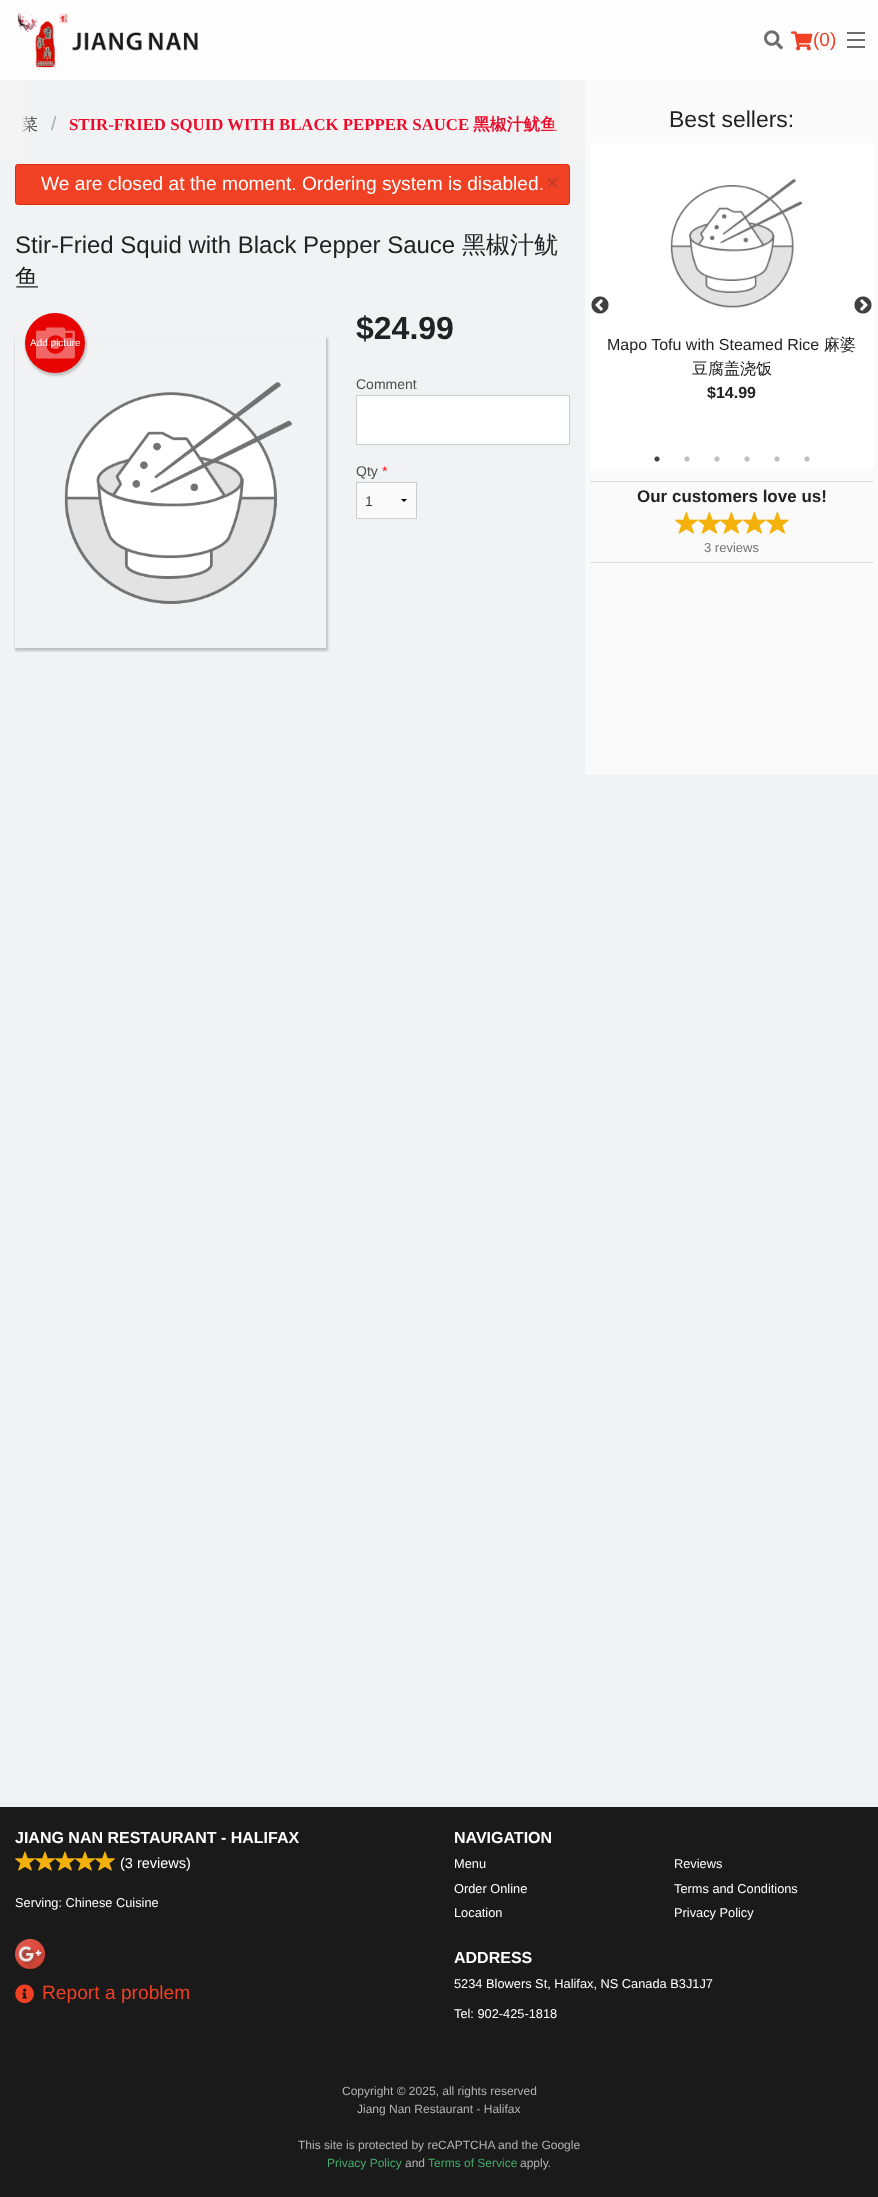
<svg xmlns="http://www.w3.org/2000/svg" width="878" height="2197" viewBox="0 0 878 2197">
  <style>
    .t1 { font: 19px Liberation Sans; fill: #f04124; }
    .t2 { font: 500 16.8px WenQuanYi Zen Hei; fill: #222; }
    .t3 { font: bold 16.8px WenQuanYi Zen Hei; fill: #eb0c2b; }
    .t4 { font: 19.2px Liberation Sans; fill: #aaa; }
    .t5 { font: bold 16.8px Liberation Serif; fill: #eb0c2b; }
    .t6 { font: 19.2px Liberation Sans; fill: #fff; }
    .t7 { font: 22px Liberation Sans; fill: #b73d29; }
    .t8 { font: 24px Liberation Sans; fill: #222; }
    .t9 { font: 500 24px WenQuanYi Zen Hei; fill: #222; }
    .t10 { font: 10px Liberation Sans; fill: #fff; }
    .t11 { font: bold 32px Liberation Sans; fill: #222; }
    .t12 { font: 14px Liberation Sans; fill: #4d4d4d; }
    .t13 { font: 14px Liberation Sans; fill: #f00; }
    .t14 { font: 14px Liberation Sans; fill: #3f3f3f; }
    .t15 { font: 23px Liberation Sans; fill: #222; }
    .t16 { font: 16px Liberation Sans; fill: #222; }
    .t17 { font: 500 16px WenQuanYi Zen Hei; fill: #222; }
    .t18 { font: bold 16px Liberation Sans; fill: #222; }
    .t19 { font: bold 17px Liberation Sans; fill: #222; }
    .t20 { font: 13px Liberation Sans; fill: #737373; }
    .t21 { font: bold 16px Liberation Sans; fill: #fff; }
    .t22 { font: 14.5px Liberation Sans; fill: #fff; }
    .t23 { font: 12.8px Liberation Sans; fill: #fff; }
    .t24 { font: 19.2px Liberation Sans; fill: #f04124; }
    .t25 { font: 12px Liberation Sans; fill: #b3b3b3; }
    .t26 { font: 12px Liberation Sans; fill: #43ac6a; }
  </style>
  <defs>
    <linearGradient id="g1" gradientUnits="userSpaceOnUse" x1="35" y1="120" x2="0" y2="120"><stop offset="0" stop-color="#f5f4f5" stop-opacity="0"/><stop offset="0.43" stop-color="#f5f4f5"/><stop offset="1" stop-color="#f5f4f5"/></linearGradient>
    <linearGradient id="g2" gradientUnits="userSpaceOnUse" x1="550" y1="120" x2="585" y2="120"><stop offset="0" stop-color="#f5f4f5" stop-opacity="0"/><stop offset="0.43" stop-color="#f5f4f5"/><stop offset="1" stop-color="#f5f4f5"/></linearGradient>
    <clipPath id="clip1"><path d="M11 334H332V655H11ZM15 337H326V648H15Z" clip-rule="evenodd"/></clipPath>
  </defs>
  <rect width="100%" height="100%" fill="#f1f2f3"/>
  <rect x="0" y="0" width="878" height="80" fill="#fefeff"/>
  <image x="17" y="12" width="181" height="56" href="images/1.png"/>
  <image x="764" y="30" width="19" height="20" href="images/2.png"/>
  <image x="791" y="31" width="22" height="20" href="images/3.png"/>
  <text x="813" y="46" class="t1">(0)</text>
  <rect x="847" y="46" width="18" height="2" fill="#6d6d6d"/>
  <rect x="847" y="39" width="18" height="2" fill="#6d6d6d"/>
  <rect x="847" y="32" width="18" height="2" fill="#6d6d6d"/>
  <text x="21" y="130" class="t2">菜</text>
  <rect x="0" y="80" width="35" height="80" fill="url(#g1)"/>
  <text x="473" y="130" class="t3">黑椒汁鱿鱼</text>
  <rect x="550" y="80" width="35" height="80" fill="url(#g2)"/>
  <text x="51" y="130" class="t4">/</text>
  <text x="69" y="130" class="t5">STIR-FRIED SQUID WITH BLACK PEPPER SAUCE</text>
  <rect x="15.5" y="164.5" width="554" height="40" rx="2.5" fill="#f04124" stroke="#de2d0f"/>
  <text x="41" y="190" class="t6">We are closed at the moment. Ordering system is disabled.</text>
  <rect x="540" y="187" width="3" height="3" fill="#f041244d"/>
  <text x="546" y="190" class="t7">×</text>
  <text x="15" y="253" class="t8">Stir-Fried Squid with Black Pepper Sauce</text>
  <text x="462" y="253" class="t9">黑椒汁鱿</text>
  <text x="15" y="286" class="t9">鱼</text>
  <g clip-path="url(#clip1)">
    <rect x="15" y="338" width="313" height="313" fill="#00000033" filter="blur(1px)"/>
  </g>
  <image x="64" y="382" width="228" height="222" href="images/4.png"/>
  <rect x="25" y="314" width="62" height="62" rx="31" fill="#00000033" filter="blur(1px)"/>
  <circle cx="55" cy="343" r="30" fill="#e60301"/>
  <image x="36" y="327" width="39" height="32" href="images/5.png"/>
  <text x="30" y="346" class="t10">Add picture</text>
  <text x="356" y="339" class="t11">$24.99</text>
  <text x="356" y="389" class="t12">Comment</text>
  <rect x="356.5" y="395.5" width="213" height="49" fill="#fff" stroke="#ccc"/>
  <text x="356" y="476" class="t12">Qty</text>
  <text x="382" y="476" class="t13">*</text>
  <rect x="357" y="483" width="59" height="35" fill="#fafafa"/>
  <path d="M407 499L404 502L401 499Z" fill="#000"/>
  <rect x="356.5" y="482.5" width="60" height="36" fill="none" stroke="#ccc"/>
  <text x="365" y="506" class="t14">1</text>
  <rect x="585" y="80" width="293" height="695" fill="#fafafa"/>
  <text x="669" y="127" class="t15">Best sellers:</text>
  <rect x="590" y="143" width="283" height="326" fill="#fff"/>
  <image x="591" y="296" width="18" height="18" href="images/6.png"/>
  <image x="854" y="296" width="18" height="18" href="images/7.png"/>
  <image x="670" y="178" width="133" height="130" href="images/8.png"/>
  <text x="607" y="350" class="t16">Mapo Tofu with Steamed Rice</text>
  <text x="824" y="350" class="t17">麻婆</text>
  <text x="692" y="374" class="t17">豆腐盖浇饭</text>
  <text x="707" y="398" class="t18">$14.99</text>
  <image x="654" y="456" width="6" height="6" href="images/9.png"/>
  <image x="684" y="456" width="6" height="6" href="images/10.png"/>
  <image x="714" y="456" width="6" height="6" href="images/10.png"/>
  <image x="744" y="456" width="6" height="6" href="images/10.png"/>
  <image x="774" y="456" width="6" height="6" href="images/10.png"/>
  <image x="804" y="456" width="6" height="6" href="images/10.png"/>
  <rect x="590" y="481" width="283" height="1" fill="#ddd"/>
  <text x="637" y="502" class="t19">Our customers love us!</text>
  <image x="675" y="511" width="23" height="23" href="images/11.png"/>
  <image x="698" y="511" width="23" height="23" href="images/11.png"/>
  <image x="720" y="511" width="23" height="23" href="images/12.png"/>
  <image x="743" y="511" width="23" height="23" href="images/11.png"/>
  <image x="766" y="511" width="23" height="23" href="images/11.png"/>
  <text x="704" y="552" class="t20">3 reviews</text>
  <rect x="590" y="562" width="283" height="1" fill="#ddd"/>
  <rect x="0" y="1807" width="878" height="390" fill="#1a1a1a"/>
  <text x="15" y="1843" class="t21">JIANG NAN RESTAURANT - HALIFAX</text>
  <image x="15" y="1851" width="20" height="20" href="images/13.png"/>
  <image x="35" y="1851" width="20" height="20" href="images/13.png"/>
  <image x="55" y="1851" width="20" height="20" href="images/13.png"/>
  <image x="75" y="1851" width="20" height="20" href="images/13.png"/>
  <image x="95" y="1851" width="20" height="20" href="images/13.png"/>
  <text x="120" y="1868" class="t22">(3 reviews)</text>
  <text x="15" y="1907" class="t23">Serving: Chinese Cuisine</text>
  <image x="15" y="1939" width="30" height="30" href="images/14.png"/>
  <image x="15" y="1984" width="19" height="20" href="images/15.png"/>
  <text x="42" y="1999" class="t24">Report a problem</text>
  <text x="454" y="1843" class="t21">NAVIGATION</text>
  <text x="454" y="1868" class="t23">Menu</text>
  <text x="454" y="1893" class="t23">Order Online</text>
  <text x="454" y="1917" class="t23">Location</text>
  <text x="674" y="1868" class="t23">Reviews</text>
  <text x="674" y="1893" class="t23">Terms and Conditions</text>
  <text x="674" y="1917" class="t23">Privacy Policy</text>
  <text x="454" y="1963" class="t21">ADDRESS</text>
  <text x="454" y="1988" class="t23">5234 Blowers St, Halifax, NS Canada B3J1J7</text>
  <text x="454" y="2018" class="t23">Tel: 902-425-1818</text>
  <text x="342" y="2095" class="t25">Copyright © 2025, all rights reserved</text>
  <text x="357" y="2113" class="t25">Jiang Nan Restaurant - Halifax</text>
  <text x="298" y="2149" class="t25">This site is protected by reCAPTCHA and the Google</text>
  <text x="327" y="2167" class="t26">Privacy Policy</text>
  <text x="405" y="2167" class="t25">and</text>
  <text x="428" y="2167" class="t26">Terms of Service</text>
  <text x="520" y="2167" class="t25">apply.</text>
</svg>
